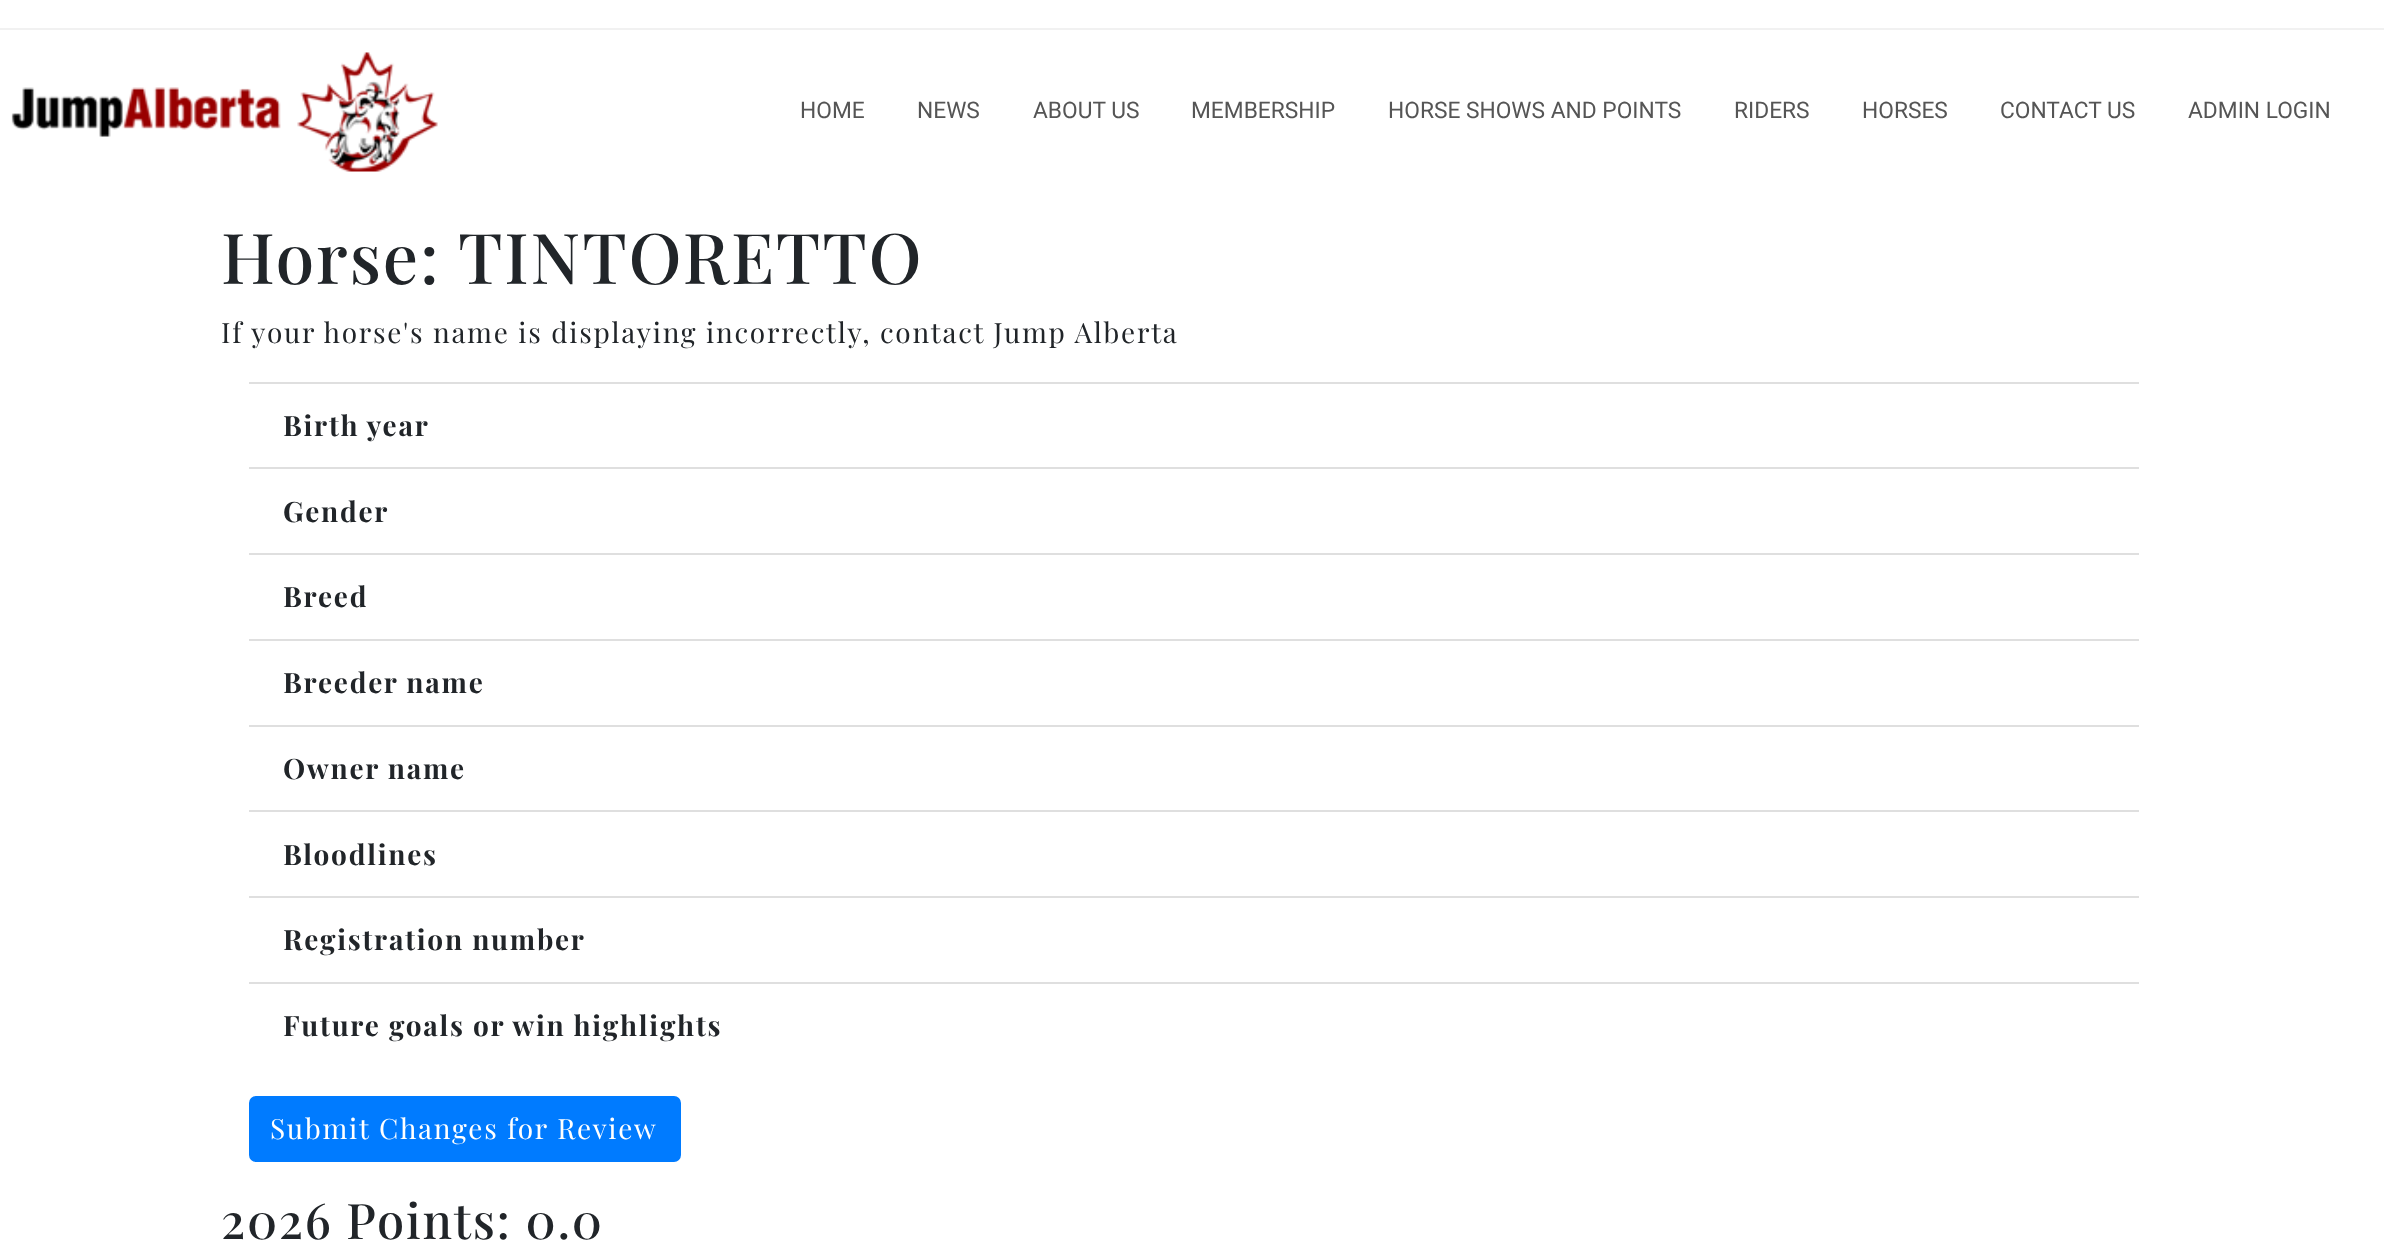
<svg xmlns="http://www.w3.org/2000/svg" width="2384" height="1251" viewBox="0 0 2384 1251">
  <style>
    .t1 { font: 22.75px Roboto; fill: #555; }
    .t2 { font: 500 70px Playfair Display; letter-spacing: 1.75px; fill: #212529; }
    .t3 { font: 28px Playfair Display; letter-spacing: 1.75px; fill: #212529; }
    .t4 { font: bold 28px Playfair Display; letter-spacing: 1.75px; fill: #212529; }
    .t5 { font: 28px Playfair Display; letter-spacing: 1.75px; fill: #fff; }
    .t6 { font: 500 49px Playfair Display; letter-spacing: 1.75px; fill: #212529; }
  </style>
  <rect width="100%" height="100%" fill="#fff"/>
  <rect x="0" y="28" width="2384" height="2" fill="#f1f1f1"/>
  <image x="11" y="52" width="427" height="120" href="images/1.png"/>
  <text x="800" y="118" class="t1">HOME</text>
  <text x="917" y="118" class="t1">NEWS</text>
  <text x="1033" y="118" class="t1">ABOUT US</text>
  <text x="1191" y="118" class="t1">MEMBERSHIP</text>
  <text x="1388" y="118" class="t1">HORSE SHOWS AND POINTS</text>
  <text x="1734" y="118" class="t1">RIDERS</text>
  <text x="1862" y="118" class="t1">HORSES</text>
  <text x="2000" y="118" class="t1">CONTACT US</text>
  <text x="2188" y="118" class="t1">ADMIN LOGIN</text>
  <text x="221" y="284" class="t2">Horse: TINTORETTO</text>
  <text x="221" y="343" class="t3">If your horse's name is displaying incorrectly, contact Jump Alberta</text>
  <rect x="249" y="382" width="1890" height="2" fill="#dfdfdf"/>
  <text x="283" y="436" class="t4">Birth year</text>
  <rect x="249" y="467" width="1890" height="2" fill="#dfdfdf"/>
  <text x="283" y="522" class="t4">Gender</text>
  <rect x="249" y="553" width="1890" height="2" fill="#dfdfdf"/>
  <text x="283" y="607" class="t4">Breed</text>
  <rect x="249" y="639" width="1890" height="2" fill="#dfdfdf"/>
  <text x="283" y="693" class="t4">Breeder name</text>
  <rect x="249" y="725" width="1890" height="2" fill="#dfdfdf"/>
  <text x="283" y="779" class="t4">Owner name</text>
  <rect x="249" y="810" width="1890" height="2" fill="#dfdfdf"/>
  <text x="283" y="865" class="t4">Bloodlines</text>
  <rect x="249" y="896" width="1890" height="2" fill="#dfdfdf"/>
  <text x="283" y="950" class="t4">Registration number</text>
  <rect x="249" y="982" width="1890" height="2" fill="#dfdfdf"/>
  <text x="283" y="1036" class="t4">Future goals or win highlights</text>
  <rect x="250" y="1097" width="430" height="64" rx="6" fill="#007bff" stroke="#007bff" stroke-width="2"/>
  <text x="270" y="1139" class="t5">Submit Changes for Review</text>
  <text x="221" y="1239" class="t6">2026 Points: 0.0</text>
</svg>
